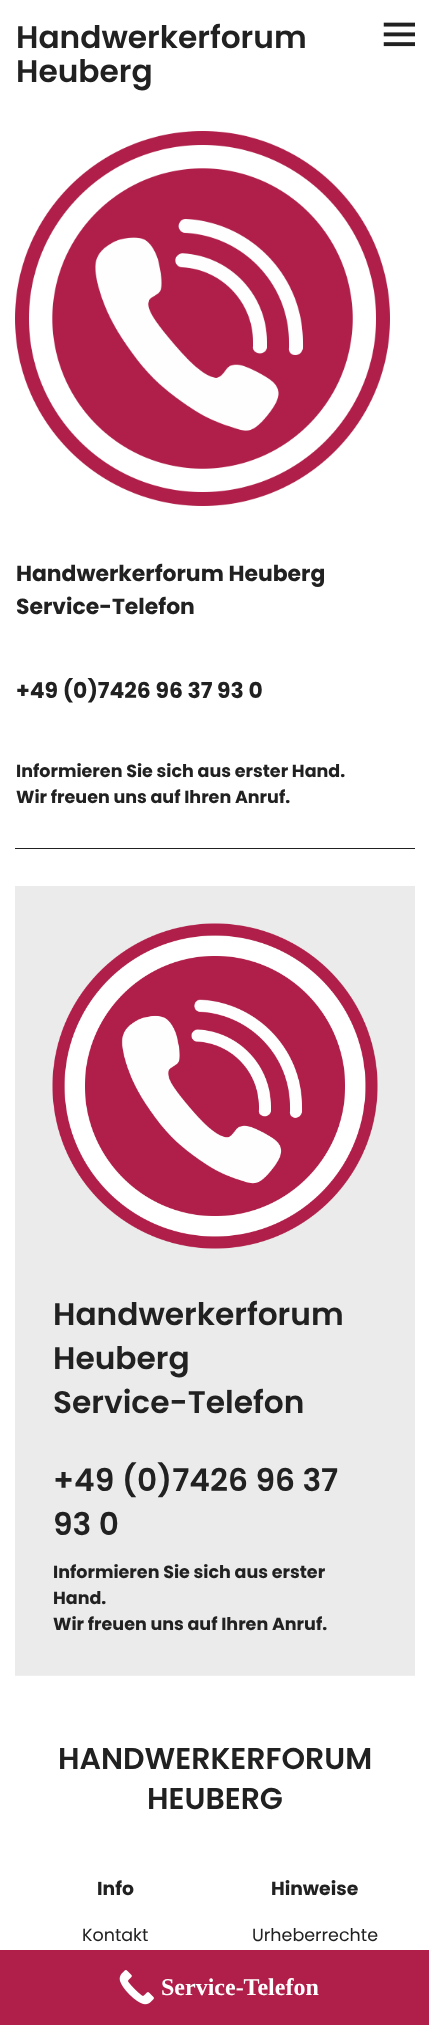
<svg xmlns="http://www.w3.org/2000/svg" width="429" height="2025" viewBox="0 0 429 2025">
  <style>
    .t1 { font: 600 31.25px Poppins; fill: #212121; }
    .t2 { font: bold 21.9px Poppins; fill: #212121; }
    .t3 { font: bold 17.5px Poppins; fill: #212121; }
    .t4 { font: 600 30px Poppins; fill: #212121; }
    .t5 { font: bold 18.75px Poppins; fill: #212121; }
    .t6 { font: 17.5px Poppins; fill: #212121; }
    .t7 { font: bold 24px Liberation Serif; fill: #fff; }
  </style>
  <rect width="100%" height="100%" fill="#fff"/>
  <text x="16" y="48" class="t1">Handwerkerforum</text>
  <text x="16" y="82" class="t1">Heuberg</text>
  <image x="383" y="22" width="32" height="25" href="images/1.png"/>
  <rect x="15" y="848" width="400" height="1" fill="#212121"/>
  <image x="15" y="131" width="375" height="375" href="images/2.png"/>
  <text x="16" y="581" class="t2">Handwerkerforum Heuberg</text>
  <text x="16" y="614" class="t2">Service-Telefon</text>
  <text x="16" y="698" class="t2">+49 (0)7426 96 37 93 0</text>
  <text x="16" y="777" class="t3">Informieren Sie sich aus erster Hand.</text>
  <text x="16" y="803" class="t3">Wir freuen uns auf Ihren Anruf.</text>
  <rect x="15" y="886" width="400" height="789" fill="#ebebeb"/>
  <rect x="15" y="1675" width="400" height="1" fill="#efefef"/>
  <image x="52" y="923" width="326" height="326" href="images/3.png"/>
  <text x="53" y="1325" class="t1">Handwerkerforum</text>
  <text x="53" y="1369" class="t1">Heuberg</text>
  <text x="53" y="1413" class="t1">Service-Telefon</text>
  <text x="53" y="1491" class="t1">+49 (0)7426 96 37</text>
  <text x="53" y="1535" class="t1">93 0</text>
  <text x="53" y="1578" class="t3">Informieren Sie sich aus erster</text>
  <text x="53" y="1604" class="t3">Hand.</text>
  <text x="53" y="1630" class="t3">Wir freuen uns auf Ihren Anruf.</text>
  <text x="58" y="1769" class="t4">HANDWERKERFORUM</text>
  <text x="147" y="1809" class="t4">HEUBERG</text>
  <text x="97" y="1895" class="t5">Info</text>
  <text x="82" y="1941" class="t6">Kontakt</text>
  <text x="271" y="1895" class="t5">Hinweise</text>
  <text x="252" y="1941" class="t6">Urheberrechte</text>
  <rect x="0" y="1950" width="429" height="75" fill="#b01f4a"/>
  <image x="119" y="1970" width="35" height="35" href="images/4.png"/>
  <text x="161" y="1995" class="t7">Service-Telefon</text>
</svg>
